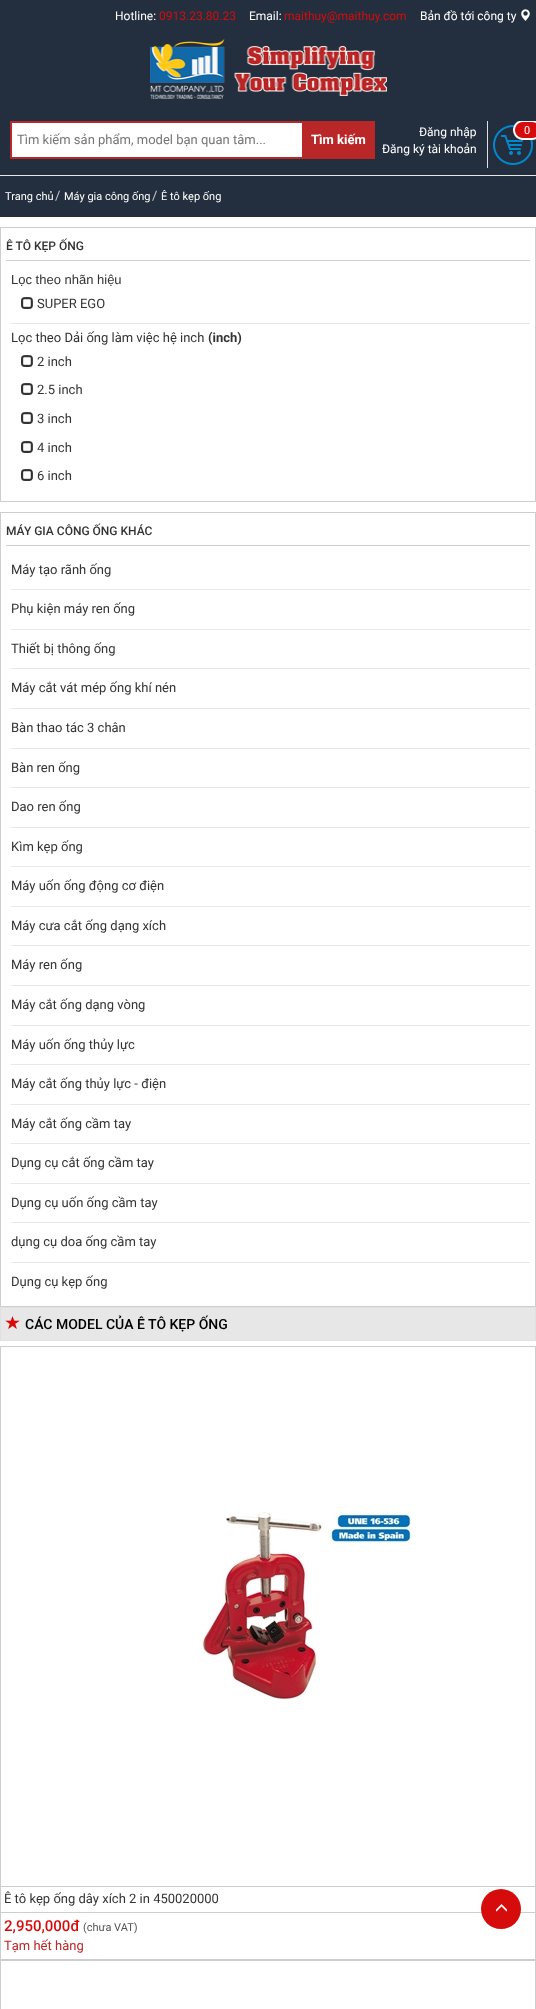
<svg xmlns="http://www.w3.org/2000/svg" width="536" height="2009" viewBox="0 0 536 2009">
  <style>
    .t1 { font: 12px Roboto; fill: #fff; }
    .t2 { font: 12px Roboto; fill: #d60c0c; }
    .t3 { font: 13px Roboto; fill: #757575; }
    .t4 { font: bold 13px Roboto; fill: #fff; }
    .t5 { font: 11px Roboto; fill: #fff; }
    .t6 { font: 13px Roboto; fill: #ccc; }
    .t7 { font: 500 12px Roboto; fill: #333; }
    .t8 { font: 13px Liberation Sans; fill: #333; }
    .t9 { font: 13px Roboto; fill: #333; }
    .t10 { font: bold 13px Roboto; fill: #333; }
    .t11 { font: 500 14px Roboto; fill: #000; }
    .t12 { font: 500 15px Roboto; fill: #d60c0c; }
    .t13 { font: 11px Roboto; fill: #555; }
    .t14 { font: 13px Roboto; fill: #ba2728; }
  </style>
  <rect width="100%" height="100%" fill="#fff"/>
  <rect x="0" y="0" width="536" height="175" fill="#232f3e"/>
  <text x="115" y="20" class="t1">Hotline:</text>
  <text x="159" y="20" class="t2">0913.23.80.23</text>
  <text x="249" y="20" class="t1">Email:</text>
  <text x="284" y="20" class="t2">maithuy@maithuy.com</text>
  <text x="420" y="20" class="t1">Bản đồ tới công ty</text>
  <image x="521" y="9" width="9" height="12" href="images/1.png"/>
  <rect x="0" y="175" width="536" height="1" fill="#e7e7e7"/>
  <image x="150" y="39" width="237" height="60" href="images/2.png"/>
  <rect x="10" y="121" width="365" height="38" fill="#ba2728"/>
  <rect x="12" y="123" width="290" height="34" fill="#fff"/>
  <text x="17" y="144" class="t3">Tìm kiếm sản phẩm, model bạn quan tâm...</text>
  <text x="311" y="144" class="t4">Tìm kiếm</text>
  <rect x="487" y="121" width="1" height="47" fill="#e0e0e0"/>
  <text x="419" y="136" class="t1">Đăng nhập</text>
  <text x="382" y="153" class="t1">Đăng ký tài khoản</text>
  <image x="493" y="121" width="43" height="44" href="images/3.png"/>
  <text x="524" y="134" class="t5">0</text>
  <rect x="0" y="176" width="536" height="41" fill="#232f3e"/>
  <text x="5" y="200" class="t5">Trang chủ</text>
  <text x="55" y="200" class="t6">/</text>
  <text x="64" y="200" class="t5">Máy gia công ống</text>
  <text x="152" y="200" class="t6">/</text>
  <text x="161" y="200" class="t5">Ê tô kẹp ống</text>
  <rect x="0.5" y="227.5" width="535" height="274" fill="none" stroke="#cecece"/>
  <rect x="6" y="260" width="524" height="1" fill="#cecece"/>
  <text x="6" y="250" class="t7">Ê TÔ KẸP ỐNG</text>
  <rect x="11" y="323" width="519" height="1" fill="#e7e7e7"/>
  <text x="11" y="284" class="t8">Lọc theo nhãn hiệu</text>
  <image x="21" y="297" width="12" height="12" href="images/4.png"/>
  <text x="37" y="308" class="t9">SUPER EGO</text>
  <text x="11" y="342" class="t9">Lọc theo Dải ống làm việc hệ inch</text>
  <text x="208" y="342" class="t10">(inch)</text>
  <image x="21" y="355" width="12" height="12" href="images/4.png"/>
  <text x="37" y="366" class="t9">2 inch</text>
  <image x="21" y="383" width="12" height="12" href="images/4.png"/>
  <text x="37" y="394" class="t9">2.5 inch</text>
  <image x="21" y="412" width="12" height="12" href="images/4.png"/>
  <text x="37" y="423" class="t9">3 inch</text>
  <image x="21" y="441" width="12" height="12" href="images/4.png"/>
  <text x="37" y="452" class="t9">4 inch</text>
  <image x="21" y="469" width="12" height="12" href="images/4.png"/>
  <text x="37" y="480" class="t9">6 inch</text>
  <rect x="0.5" y="512.5" width="535" height="794" fill="none" stroke="#cecece"/>
  <rect x="6" y="545" width="524" height="1" fill="#cecece"/>
  <text x="6" y="535" class="t7">MÁY GIA CÔNG ỐNG KHÁC</text>
  <rect x="11" y="589" width="519" height="1" fill="#e7e7e7"/>
  <text x="11" y="574" class="t9">Máy tạo rãnh ống</text>
  <rect x="11" y="629" width="519" height="1" fill="#e7e7e7"/>
  <text x="11" y="613" class="t9">Phụ kiện máy ren ống</text>
  <rect x="11" y="668" width="519" height="1" fill="#e7e7e7"/>
  <text x="11" y="653" class="t9">Thiết bị thông ống</text>
  <rect x="11" y="708" width="519" height="1" fill="#e7e7e7"/>
  <text x="11" y="692" class="t9">Máy cắt vát mép ống khí nén</text>
  <rect x="11" y="748" width="519" height="1" fill="#e7e7e7"/>
  <text x="11" y="732" class="t9">Bàn thao tác 3 chân</text>
  <rect x="11" y="787" width="519" height="1" fill="#e7e7e7"/>
  <text x="11" y="772" class="t9">Bàn ren ống</text>
  <rect x="11" y="827" width="519" height="1" fill="#e7e7e7"/>
  <text x="11" y="811" class="t9">Dao ren ống</text>
  <rect x="11" y="866" width="519" height="1" fill="#e7e7e7"/>
  <text x="11" y="851" class="t9">Kìm kẹp ống</text>
  <rect x="11" y="906" width="519" height="1" fill="#e7e7e7"/>
  <text x="11" y="890" class="t9">Máy uốn ống động cơ điện</text>
  <rect x="11" y="945" width="519" height="1" fill="#e7e7e7"/>
  <text x="11" y="930" class="t9">Máy cưa cắt ống dạng xích</text>
  <rect x="11" y="985" width="519" height="1" fill="#e7e7e7"/>
  <text x="11" y="969" class="t9">Máy ren ống</text>
  <rect x="11" y="1025" width="519" height="1" fill="#e7e7e7"/>
  <text x="11" y="1009" class="t9">Máy cắt ống dạng vòng</text>
  <rect x="11" y="1064" width="519" height="1" fill="#e7e7e7"/>
  <text x="11" y="1049" class="t9">Máy uốn ống thủy lực</text>
  <rect x="11" y="1104" width="519" height="1" fill="#e7e7e7"/>
  <text x="11" y="1088" class="t9">Máy cắt ống thủy lực - điện</text>
  <rect x="11" y="1143" width="519" height="1" fill="#e7e7e7"/>
  <text x="11" y="1128" class="t9">Máy cắt ống cầm tay</text>
  <rect x="11" y="1183" width="519" height="1" fill="#e7e7e7"/>
  <text x="11" y="1167" class="t9">Dụng cụ cắt ống cầm tay</text>
  <rect x="11" y="1222" width="519" height="1" fill="#e7e7e7"/>
  <text x="11" y="1207" class="t9">Dụng cụ uốn ống cầm tay</text>
  <rect x="11" y="1262" width="519" height="1" fill="#e7e7e7"/>
  <text x="11" y="1246" class="t9">dụng cụ doa ống cầm tay</text>
  <text x="11" y="1286" class="t9">Dụng cụ kẹp ống</text>
  <rect x="0.5" y="1307.5" width="535" height="33" fill="#e7e7e7" stroke="#e0e0e0"/>
  <image x="5" y="1316" width="15" height="13" href="images/5.png"/>
  <text x="25" y="1329" class="t11">CÁC MODEL CỦA Ê TÔ KẸP ỐNG</text>
  <rect x="0.5" y="1346.5" width="535" height="613" fill="none" stroke="#cecece"/>
  <image x="201" y="1512" width="211" height="188" href="images/6.png"/>
  <rect x="1" y="1886" width="534" height="1" fill="#cecece"/>
  <rect x="1" y="1912" width="534" height="1" fill="#cecece"/>
  <text x="4" y="1903" class="t9">Ê tô kẹp ống dây xích 2 in 450020000</text>
  <text x="4" y="1931" class="t12">2,950,000đ</text>
  <text x="83" y="1931" class="t13">(chưa VAT)</text>
  <text x="4" y="1950" class="t14">Tạm hết hàng</text>
  <rect x="0.5" y="1960.5" width="535" height="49" fill="none" stroke="#cecece"/>
  <circle cx="501" cy="1909" r="20" fill="#d60c0c"/>
  <image x="496" y="1904" width="11" height="8" href="images/7.png"/>
</svg>
